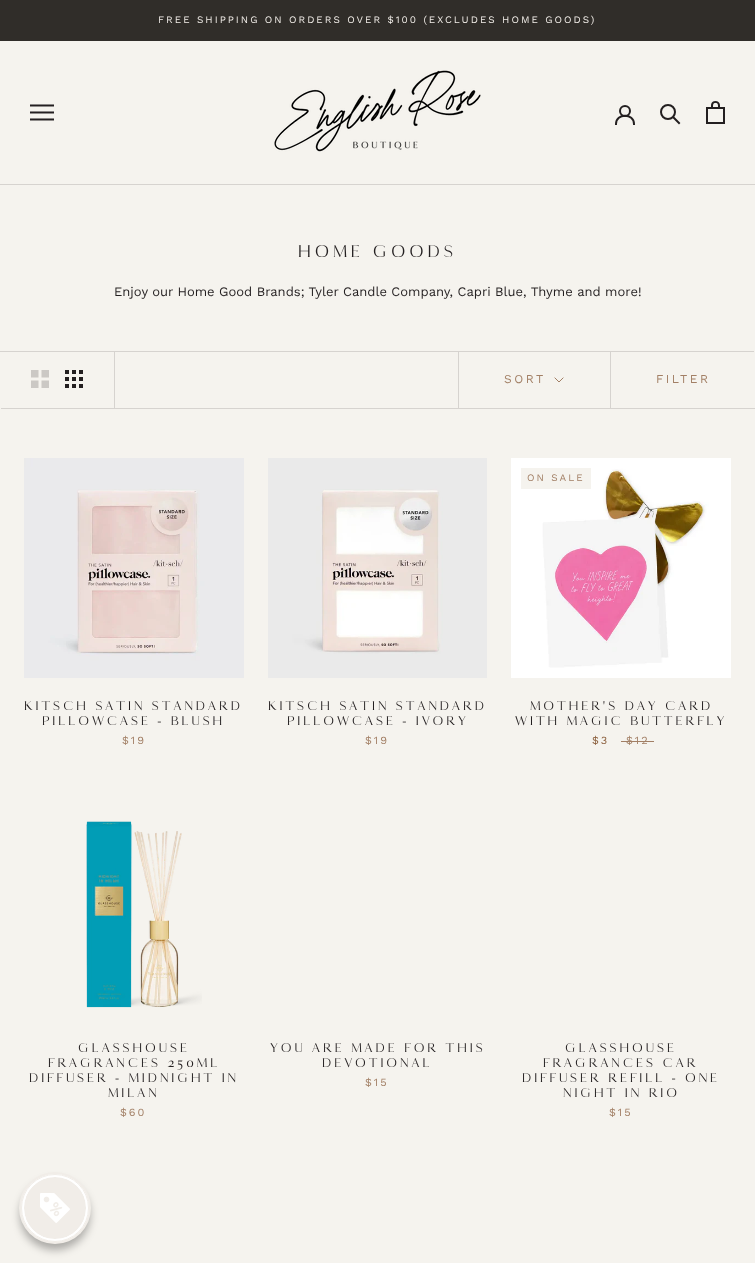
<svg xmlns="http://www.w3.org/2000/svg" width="755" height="1263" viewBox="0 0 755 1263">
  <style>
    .t1 { font: 10px Work Sans; letter-spacing: 2px; fill: #f1ede8; }
    .t2 { font: 20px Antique; letter-spacing: 4px; fill: #231f20; }
    .t3 { font: 13px Work Sans; fill: #231f20; }
    .t4 { font: 12px Work Sans; letter-spacing: 2.5px; fill: #a27f65; }
    .t5 { font: 15px Antique; letter-spacing: 3px; fill: #231f20; }
    .t6 { font: 11px Work Sans; letter-spacing: 2px; fill: #a27f65; }
    .t7 { font: 10px Work Sans; letter-spacing: 2px; fill: #a27f65; }
    .t8 { font: 11px Work Sans; letter-spacing: 2px; fill: #885b38; }
  </style>
  <rect width="100%" height="100%" fill="#f5f3ee"/>
  <rect x="0" y="0" width="755" height="41" fill="#302d29"/>
  <text x="158" y="23" class="t1">FREE SHIPPING ON ORDERS OVER $100 (EXCLUDES HOME GOODS)</text>
  <rect x="0" y="184" width="755" height="1" fill="#d6d3cf"/>
  <image x="30" y="104" width="24" height="17" href="images/1.png"/>
  <image x="274" y="70" width="207" height="82" href="images/2.png"/>
  <path d="M616 124C616 113 634 113 634 124" fill="none" stroke="#231f20" stroke-width="2" stroke-linecap="square"/>
  <circle cx="625" cy="111" r="5" fill="none" stroke="#231f20" stroke-width="2"/>
  <path d="M679 123L673.5 117.5" fill="none" stroke="#231f20" stroke-width="2" stroke-linecap="square"/>
  <circle cx="668" cy="112" r="7" fill="none" stroke="#231f20" stroke-width="2"/>
  <image x="706" y="101" width="19" height="23" href="images/3.png"/>
  <text x="298" y="257" class="t2">HOME GOODS</text>
  <text x="114" y="296" class="t3">Enjoy our Home Good Brands; Tyler Candle Company, Capri Blue, Thyme and more!</text>
  <path d="M-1 351V407H0V352H754V351Z" fill="#d6d3cf"/>
  <path d="M1 408V409H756V353H755V408Z" fill="#d6d3cf"/>
  <rect x="114" y="352" width="1" height="56" fill="#d6d3cf"/>
  <image x="31" y="370" width="18" height="18" href="images/4.png"/>
  <image x="65" y="370" width="18" height="18" href="images/5.png"/>
  <rect x="458" y="352" width="1" height="56" fill="#d6d3cf"/>
  <text x="504" y="383" class="t4">SORT</text>
  <path d="M563 378L559 382L555 378" fill="none" stroke="#a27f65" stroke-linecap="square"/>
  <rect x="610" y="352" width="1" height="56" fill="#d6d3cf"/>
  <text x="656" y="383" class="t4">FILTER</text>
  <image x="24" y="458" width="220" height="220" href="images/6.png"/>
  <text x="24" y="710" class="t5">KITSCH SATIN STANDARD</text>
  <text x="42" y="725" class="t5">PILLOWCASE - BLUSH</text>
  <text x="122" y="744" class="t6">$19</text>
  <image x="268" y="458" width="219" height="220" href="images/7.png"/>
  <text x="268" y="710" class="t5">KITSCH SATIN STANDARD</text>
  <text x="287" y="725" class="t5">PILLOWCASE - IVORY</text>
  <text x="365" y="744" class="t6">$19</text>
  <image x="511" y="458" width="220" height="220" href="images/8.png"/>
  <rect x="521" y="468" width="70" height="21" fill="#f5f3ee"/>
  <text x="527" y="481" class="t7">ON SALE</text>
  <text x="530" y="710" class="t5">MOTHER'S DAY CARD</text>
  <text x="515" y="725" class="t5">WITH MAGIC BUTTERFLY</text>
  <text x="592" y="744" class="t8">$3</text>
  <text x="626" y="744" class="t6">$12</text>
  <rect x="621" y="741" width="33" height="1" fill="#a27f65"/>
  <image x="86" y="821" width="116" height="187" href="images/9.png"/>
  <text x="78" y="1052" class="t5">GLASSHOUSE</text>
  <text x="48" y="1067" class="t5">FRAGRANCES 250ML</text>
  <text x="29" y="1082" class="t5">DIFFUSER - MIDNIGHT IN</text>
  <text x="108" y="1097" class="t5">MILAN</text>
  <text x="120" y="1116" class="t6">$60</text>
  <text x="270" y="1052" class="t5">YOU ARE MADE FOR THIS</text>
  <text x="322" y="1067" class="t5">DEVOTIONAL</text>
  <text x="365" y="1086" class="t6">$15</text>
  <text x="565" y="1052" class="t5">GLASSHOUSE</text>
  <text x="543" y="1067" class="t5">FRAGRANCES CAR</text>
  <text x="522" y="1082" class="t5">DIFFUSER REFILL - ONE</text>
  <text x="563" y="1097" class="t5">NIGHT IN RIO</text>
  <text x="609" y="1116" class="t6">$15</text>
  <rect x="20" y="1180" width="70" height="70" rx="35" fill="#0000004d" filter="blur(4px)"/>
  <rect x="19" y="1172" width="72" height="72" rx="36" fill="#f1ede8" filter="blur(0.5px)"/>
  <circle cx="55" cy="1208" r="32.5" fill="none" stroke="#fff" stroke-width="3"/>
  <circle cx="55" cy="1208" r="32.5" fill="none" stroke="#fff" stroke-width="3"/>
  <circle cx="55" cy="1208" r="33.5" fill="none" stroke="#f1ede8"/>
  <circle cx="55" cy="1208" r="34.5" fill="none" stroke="#f1ede8"/>
  <image x="40" y="1193" width="30" height="30" href="images/10.png"/>
</svg>
